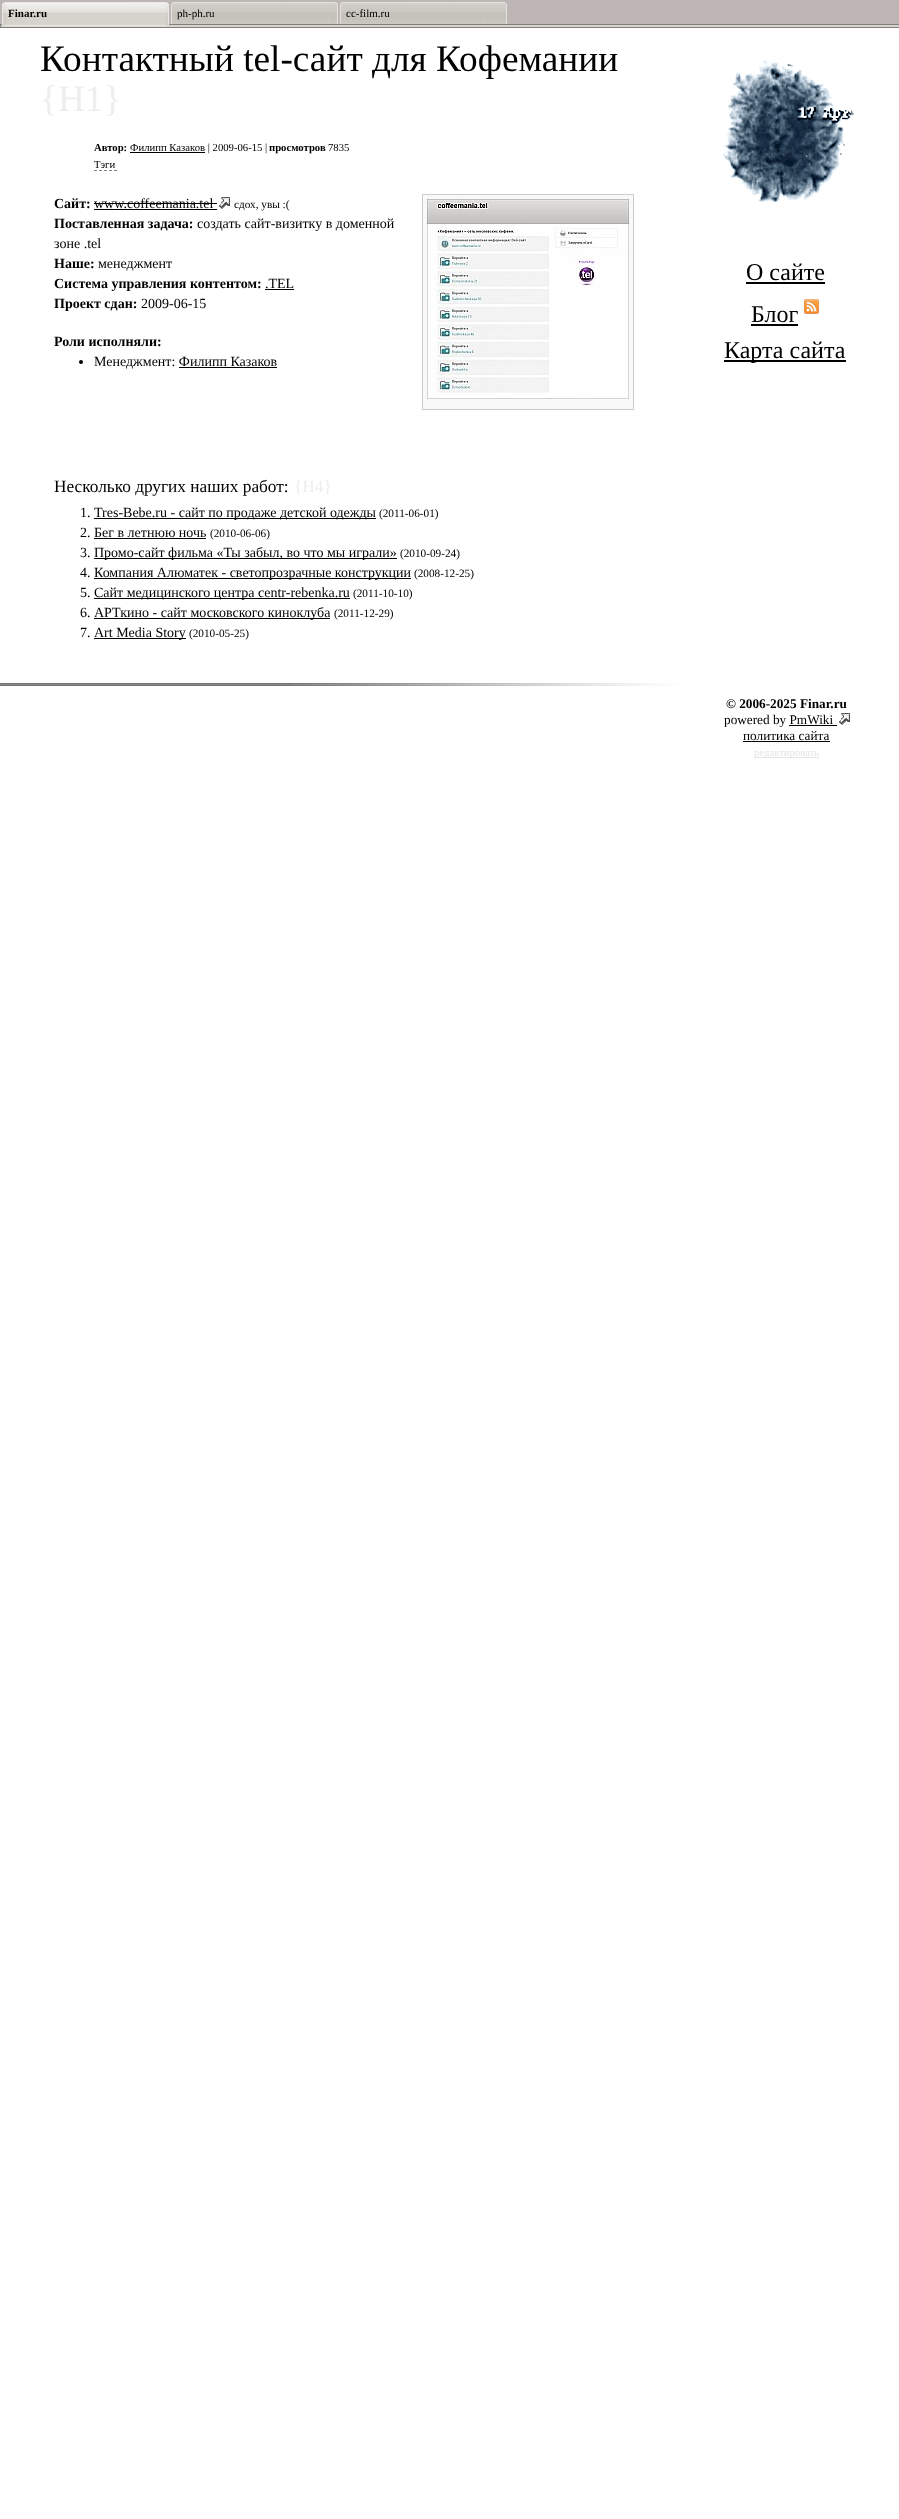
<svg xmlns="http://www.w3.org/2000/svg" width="899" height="2519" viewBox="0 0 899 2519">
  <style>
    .t1 { font: bold 11px Liberation Serif; fill: #000; }
    .t2 { font: 11px Liberation Serif; fill: #000; }
    .t3 { font: 37.3px Liberation Serif; fill: #000; }
    .t4 { font: 37.3px Liberation Serif; fill: #eee; }
    .t5 { font: bold 10.7px Liberation Serif; fill: #000; }
    .t6 { font: 10.7px Liberation Serif; fill: #000; }
    .t7 { font: bold 14px Liberation Serif; fill: #000; }
    .t8 { font: 14px Liberation Serif; fill: #000; }
    .t9 { font: 11.25px Liberation Serif; fill: #000; }
    .t10 { font: 17.3px Liberation Serif; fill: #000; }
    .t11 { font: 17.3px Liberation Serif; fill: #eee; }
    .t12 { font: 24px Liberation Serif; fill: #000; }
    .t13 { font: bold 13.25px Liberation Serif; fill: #000; }
    .t14 { font: 13.25px Liberation Serif; fill: #000; }
    .t15 { font: 10.7px Liberation Serif; fill: #e5e5e5; }
  </style>
  <rect width="100%" height="100%" fill="#fff"/>
  <rect x="0" y="0" width="899" height="24" fill="#bdb6b5"/>
  <rect x="0.5" y="24.5" width="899" height="3" fill="#d8d4cd" stroke="#808080"/>
  <image x="2" y="2" width="167" height="24" href="images/1.png"/>
  <text x="8" y="17" class="t1">Finar.ru</text>
  <image x="171" y="2" width="167" height="22" href="images/2.png"/>
  <text x="177" y="17" class="t2">ph-ph.ru</text>
  <image x="340" y="2" width="167" height="22" href="images/2.png"/>
  <text x="346" y="17" class="t2">cc-film.ru</text>
  <text x="40" y="71" class="t3">Контактный tel-сайт для Кофемании</text>
  <text x="40" y="111" class="t4">{H1}</text>
  <text x="94" y="151" class="t5">Автор:</text>
  <rect x="130" y="152" width="75" height="1" fill="#000"/>
  <text x="130" y="151" class="t6">Филипп Казаков | 2009-06-15 |</text>
  <text x="269" y="151" class="t5">просмотров</text>
  <text x="328" y="151" class="t6">7835</text>
  <text x="94" y="168" class="t6">Тэги</text>
  <path d="M94 170.5H117" fill="none" stroke="#808080" stroke-dasharray="3 2"/>
  <text x="54" y="208" class="t7">Сайт:</text>
  <text x="94" y="208" class="t8">www.coffeemania.tel</text>
  <rect x="94" y="209" width="123" height="1" fill="#000"/>
  <rect x="94" y="203" width="123" height="1" fill="#000"/>
  <image x="219" y="197" width="11" height="12" href="images/3.png"/>
  <text x="234" y="208" class="t9">сдох, увы :(</text>
  <rect x="422.5" y="194.5" width="211" height="215" fill="#f9f9f9" stroke="#ccc"/>
  <image x="427" y="199" width="202" height="200" href="images/4.png"/>
  <text x="54" y="228" class="t7">Поставленная задача:</text>
  <text x="197" y="228" class="t8">создать сайт-визитку в доменной</text>
  <text x="54" y="248" class="t8">зоне .tel</text>
  <text x="54" y="268" class="t7">Наше:</text>
  <text x="98" y="268" class="t8">менеджмент</text>
  <text x="54" y="288" class="t7">Система управления контентом:</text>
  <text x="265" y="288" class="t8">.TEL</text>
  <rect x="265" y="289" width="29" height="1" fill="#000"/>
  <text x="54" y="308" class="t7">Проект сдан:</text>
  <text x="141" y="308" class="t8">2009-06-15</text>
  <text x="54" y="346" class="t7">Роли исполняли:</text>
  <circle cx="81" cy="362" r="2" fill="#000"/>
  <text x="94" y="366" class="t8">Менеджмент: Филипп Казаков</text>
  <rect x="179" y="367" width="98" height="1" fill="#000"/>
  <text x="54" y="492" class="t10">Несколько других наших работ:</text>
  <text x="294" y="492" class="t11">{H4}</text>
  <text x="80" y="517" class="t8">1.</text>
  <rect x="94" y="518" width="282" height="1" fill="#000"/>
  <text x="94" y="517" class="t8">Tres-Bebe.ru - сайт по продаже детской одежды</text>
  <text x="379" y="517" class="t9">(2011-06-01)</text>
  <text x="80" y="537" class="t8">2. Бег в летнюю ночь</text>
  <text x="210" y="537" class="t9">(2010-06-06)</text>
  <rect x="94" y="538" width="112" height="1" fill="#000"/>
  <text x="80" y="557" class="t8">3.</text>
  <rect x="94" y="558" width="303" height="1" fill="#000"/>
  <text x="94" y="557" class="t8">Промо-сайт фильма «Ты забыл, во что мы играли»</text>
  <text x="400" y="557" class="t9">(2010-09-24)</text>
  <text x="80" y="577" class="t8">4.</text>
  <rect x="94" y="578" width="317" height="1" fill="#000"/>
  <text x="94" y="577" class="t8">Компания Алюматек - светопрозрачные конструкции</text>
  <text x="414" y="577" class="t9">(2008-12-25)</text>
  <text x="80" y="597" class="t8">5.</text>
  <rect x="94" y="598" width="256" height="1" fill="#000"/>
  <text x="94" y="597" class="t8">Сайт медицинского центра centr-rebenka.ru</text>
  <text x="353" y="597" class="t9">(2011-10-10)</text>
  <text x="80" y="617" class="t8">6.</text>
  <rect x="94" y="618" width="236" height="1" fill="#000"/>
  <text x="94" y="617" class="t8">АРТкино - сайт московского киноклуба</text>
  <text x="334" y="617" class="t9">(2011-12-29)</text>
  <text x="80" y="637" class="t8">7.</text>
  <rect x="94" y="638" width="92" height="1" fill="#000"/>
  <text x="94" y="637" class="t8">Art Media Story</text>
  <text x="189" y="637" class="t9">(2010-05-25)</text>
  <image x="721" y="58" width="134" height="145" href="images/5.png"/>
  <text x="746" y="280" class="t12">О сайте</text>
  <rect x="746" y="282" width="79" height="2" fill="#000"/>
  <text x="751" y="322" class="t12">Блог</text>
  <rect x="751" y="324" width="47" height="2" fill="#000"/>
  <image x="804" y="299" width="15" height="15" href="images/6.png"/>
  <rect x="724" y="360" width="122" height="2" fill="#000"/>
  <text x="724" y="358" class="t12">Карта сайта</text>
  <rect x="0" y="683" width="688" height="1" fill="#737373"/>
  <image x="291" y="683" width="608" height="1" href="images/7.png"/>
  <rect x="0" y="684" width="688" height="1" fill="#8a8a8a"/>
  <image x="294" y="684" width="605" height="1" href="images/8.png"/>
  <rect x="0" y="685" width="688" height="1" fill="#737373"/>
  <image x="291" y="685" width="608" height="1" href="images/7.png"/>
  <text x="726" y="708" class="t13">© 2006-2025 Finar.ru</text>
  <text x="724" y="724" class="t14">powered by PmWiki</text>
  <image x="839" y="713" width="11" height="12" href="images/3.png"/>
  <rect x="789" y="725" width="48" height="1" fill="#000"/>
  <text x="743" y="740" class="t14">политика сайта</text>
  <rect x="743" y="741" width="87" height="1" fill="#000"/>
  <rect x="754" y="757" width="65" height="1" fill="#e5e5e5"/>
  <text x="754" y="756" class="t15">редактировать</text>
</svg>
